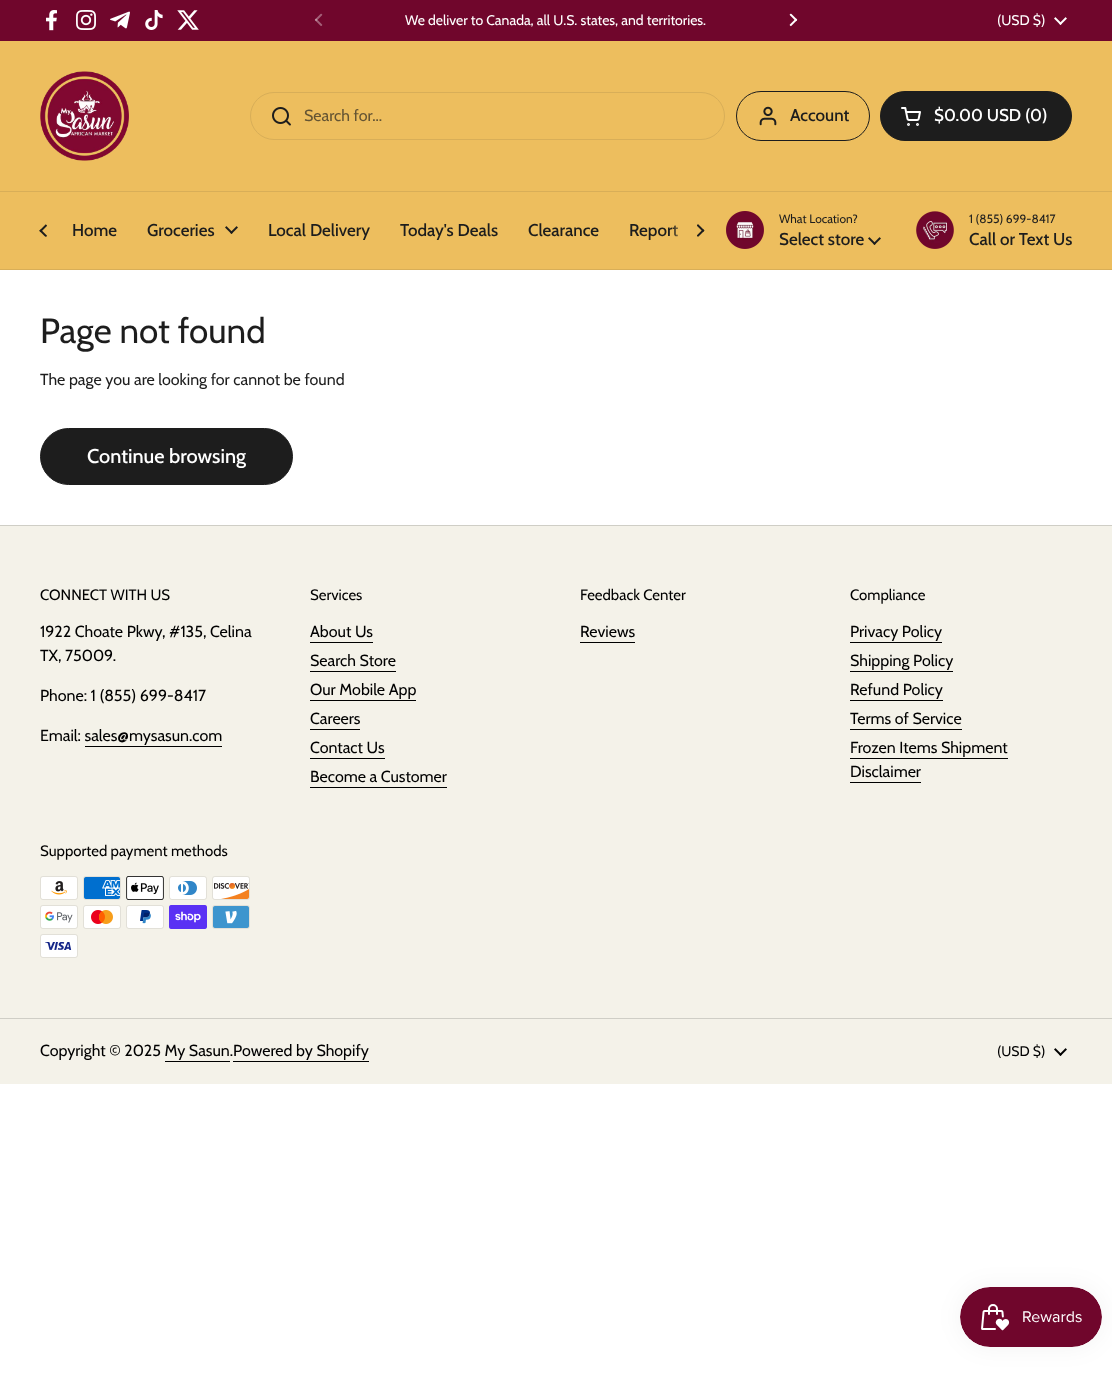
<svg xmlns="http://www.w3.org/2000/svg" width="1112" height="1397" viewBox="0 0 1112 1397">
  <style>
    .t1 { font: 14px Cabin; fill: #fff; }
    .t2 { font: 16px Cabin; fill: #645433; }
    .t3 { font: 500 17px Cabin; fill: #1d1d1d; }
    .t4 { font: 500 17px Cabin; fill: #fff; }
    .t5 { font: 12px Cabin; fill: #1d1d1d; }
    .t6 { font: 35px Cabin; fill: #1d1d1d; }
    .t7 { font: 16px Cabin; fill: #1d1d1d; }
    .t8 { font: 500 20px Cabin; fill: #fff; }
    .t9 { font: 15px Cabin; fill: #000; }
    .t10 { font: 16px Cabin; fill: #000; }
    .t11 { font: 14px Cabin; fill: #000; }
  </style>
  <defs>
    <linearGradient id="g1" gradientUnits="userSpaceOnUse" x1="697" y1="230" x2="672" y2="230"><stop offset="0.5" stop-color="#edbe5e"/><stop offset="1" stop-color="#edbe5e" stop-opacity="0"/></linearGradient>
  </defs>
  <rect width="100%" height="100%" fill="#fff"/>
  <rect x="0" y="0" width="1112" height="41" fill="#70062c"/>
  <image x="46" y="10" width="11" height="21" href="images/1.png"/>
  <image x="76" y="10" width="20" height="20" href="images/2.png"/>
  <image x="110" y="11" width="20" height="18" href="images/3.png"/>
  <image x="145" y="10" width="18" height="20" href="images/4.png"/>
  <image x="177" y="10" width="22" height="20" href="images/5.png"/>
  <image x="314" y="13" width="9" height="13" href="images/6.png"/>
  <text x="405" y="25" class="t1">We deliver to Canada, all U.S. states, and territories.</text>
  <image x="789" y="13" width="9" height="14" href="images/7.png"/>
  <text x="997" y="25" class="t1">(USD $)</text>
  <image x="1054" y="17" width="13" height="8" href="images/8.png"/>
  <rect x="0" y="41" width="1112" height="228" fill="#edbe5e"/>
  <rect x="0" y="191" width="1112" height="1" fill="#d8ae58"/>
  <image x="40" y="71" width="89" height="90" href="images/9.png"/>
  <rect x="250.5" y="92.5" width="474" height="47" rx="23.5" fill="none" stroke="#d8ae58"/>
  <image x="272" y="107" width="19" height="19" href="images/10.png"/>
  <text x="304" y="121" class="t2">Search for...</text>
  <rect x="736.5" y="91.5" width="133" height="49" rx="24.5" fill="none" stroke="#1d1d1d"/>
  <image x="759" y="106" width="18" height="20" href="images/11.png"/>
  <text x="790" y="121" class="t3">Account</text>
  <rect x="880.5" y="91.5" width="191" height="49" rx="24.5" fill="#1d1d1d" stroke="#1d1d1d"/>
  <image x="901" y="107" width="20" height="19" href="images/12.png"/>
  <text x="934" y="121" class="t4">$0.00 USD</text>
  <text x="1025" y="121" class="t4">(0</text>
  <text x="1042" y="121" class="t4">)</text>
  <rect x="0" y="269" width="1112" height="1" fill="#d8ae58"/>
  <image x="39" y="224" width="8" height="13" href="images/13.png"/>
  <text x="72" y="236" class="t3">Home</text>
  <text x="147" y="236" class="t3">Groceries</text>
  <image x="225" y="226" width="13" height="8" href="images/14.png"/>
  <text x="268" y="236" class="t3">Local Delivery</text>
  <text x="400" y="236" class="t3">Today's Deals</text>
  <text x="528" y="236" class="t3">Clearance</text>
  <text x="629" y="236" class="t3">Report</text>
  <rect x="672" y="225" width="6" height="12" fill="url(#g1)"/>
  <image x="697" y="224" width="8" height="13" href="images/15.png"/>
  <image x="726" y="211" width="38" height="38" href="images/16.png"/>
  <text x="779" y="223" class="t5">What Location?</text>
  <text x="779" y="245" class="t3">Select store</text>
  <image x="868" y="237" width="13" height="8" href="images/14.png"/>
  <image x="916" y="211" width="38" height="38" href="images/17.png"/>
  <text x="969" y="223" class="t5">1 (855) 699-8417</text>
  <text x="969" y="245" class="t3">Call or Text Us</text>
  <text x="40" y="343" class="t6">Page not found</text>
  <text x="40" y="385" class="t7">The page you are looking for cannot be found</text>
  <rect x="40.5" y="428.5" width="252" height="56" rx="28" fill="#1d1d1d" stroke="#1d1d1d"/>
  <text x="87" y="463" class="t8">Continue browsing</text>
  <rect x="0" y="526" width="1112" height="558" fill="#f4f2e9"/>
  <rect x="0" y="525" width="1112" height="1" fill="#cfcec6"/>
  <text x="40" y="600" class="t9">CONNECT WITH US</text>
  <text x="40" y="637" class="t10">1922 Choate Pkwy, #135, Celina</text>
  <text x="40" y="661" class="t10">TX, 75009.</text>
  <text x="40" y="701" class="t10">Phone: 1 (855) 699-8417</text>
  <text x="40" y="741" class="t10">Email: sales@mysasun.com</text>
  <rect x="85" y="746" width="137" height="1" fill="#000"/>
  <text x="310" y="600" class="t9">Services</text>
  <text x="310" y="637" class="t10">About Us</text>
  <rect x="310" y="642" width="63" height="1" fill="#000"/>
  <text x="310" y="666" class="t10">Search Store</text>
  <rect x="310" y="671" width="86" height="1" fill="#000"/>
  <text x="310" y="695" class="t10">Our Mobile App</text>
  <rect x="310" y="700" width="106" height="1" fill="#000"/>
  <text x="310" y="724" class="t10">Careers</text>
  <rect x="310" y="729" width="50" height="1" fill="#000"/>
  <text x="310" y="753" class="t10">Contact Us</text>
  <rect x="310" y="758" width="75" height="1" fill="#000"/>
  <text x="310" y="782" class="t10">Become a Customer</text>
  <rect x="310" y="787" width="137" height="1" fill="#000"/>
  <text x="580" y="600" class="t9">Feedback Center</text>
  <text x="580" y="637" class="t10">Reviews</text>
  <rect x="580" y="642" width="55" height="1" fill="#000"/>
  <text x="850" y="600" class="t9">Compliance</text>
  <text x="850" y="637" class="t10">Privacy Policy</text>
  <rect x="850" y="642" width="92" height="1" fill="#000"/>
  <text x="850" y="666" class="t10">Shipping Policy</text>
  <rect x="850" y="671" width="103" height="1" fill="#000"/>
  <text x="850" y="695" class="t10">Refund Policy</text>
  <rect x="850" y="700" width="93" height="1" fill="#000"/>
  <text x="850" y="724" class="t10">Terms of Service</text>
  <rect x="850" y="729" width="112" height="1" fill="#000"/>
  <text x="850" y="753" class="t10">Frozen Items Shipment</text>
  <rect x="850" y="758" width="158" height="1" fill="#000"/>
  <text x="850" y="777" class="t10">Disclaimer</text>
  <rect x="850" y="782" width="71" height="1" fill="#000"/>
  <text x="40" y="856" class="t9">Supported payment methods</text>
  <image x="40" y="876" width="38" height="24" href="images/18.png"/>
  <image x="83" y="876" width="38" height="24" href="images/19.png"/>
  <image x="126" y="876" width="38" height="24" href="images/20.png"/>
  <image x="169" y="876" width="38" height="24" href="images/21.png"/>
  <image x="212" y="876" width="38" height="24" href="images/22.png"/>
  <image x="40" y="905" width="38" height="24" href="images/23.png"/>
  <image x="83" y="905" width="38" height="24" href="images/24.png"/>
  <image x="126" y="905" width="38" height="24" href="images/25.png"/>
  <image x="169" y="905" width="38" height="24" href="images/26.png"/>
  <image x="212" y="905" width="38" height="24" href="images/27.png"/>
  <image x="40" y="934" width="38" height="24" href="images/28.png"/>
  <rect x="0" y="1018" width="1112" height="1" fill="#cfcec6"/>
  <text x="40" y="1056" class="t10">Copyright © 2025 My Sasun.Powered by Shopify</text>
  <rect x="165" y="1061" width="65" height="1" fill="#000"/>
  <rect x="233" y="1061" width="136" height="1" fill="#000"/>
  <text x="997" y="1056" class="t11">(USD $)</text>
  <image x="1054" y="1048" width="13" height="8" href="images/29.png"/>
  <rect x="960" y="1287" width="142" height="60" rx="30" fill="#0000000d" filter="blur(12.5px)"/>
  <image x="960" y="1287" width="142" height="60" href="images/30.png"/>
</svg>
